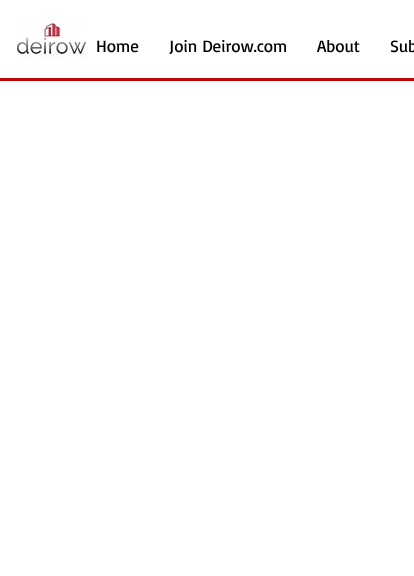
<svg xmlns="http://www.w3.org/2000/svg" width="414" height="576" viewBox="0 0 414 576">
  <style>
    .t1 { font: 17px Basic; fill: #000; }
  </style>
  <rect width="100%" height="100%" fill="#fff"/>
  <image x="17" y="21" width="70" height="40" href="images/1.png"/>
  <text x="96" y="52" class="t1">Home</text>
  <text x="169" y="52" class="t1">Join Deirow.com</text>
  <text x="317" y="52" class="t1">About</text>
  <text x="390" y="52" class="t1">Sub</text>
  <rect x="0" y="78" width="414" height="3" fill="#bb060a"/>
</svg>
